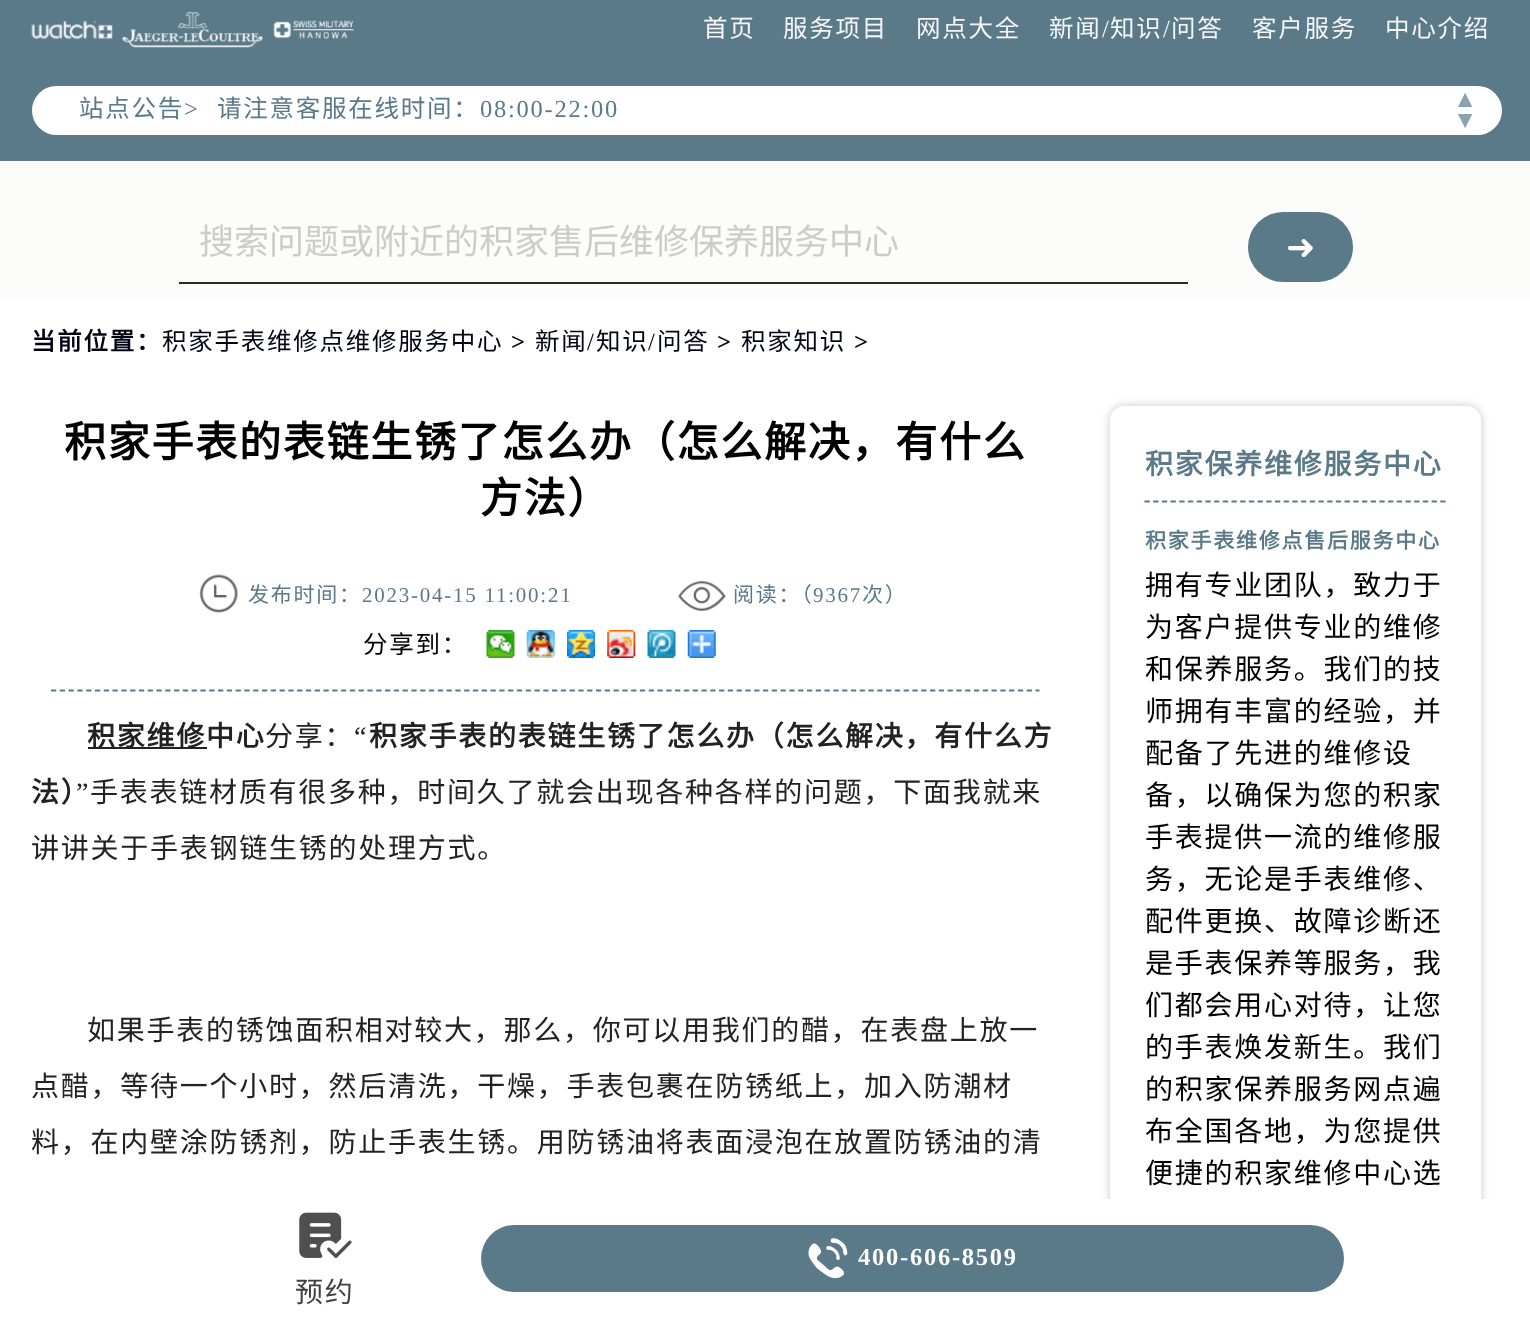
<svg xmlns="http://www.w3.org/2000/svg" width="1530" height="1317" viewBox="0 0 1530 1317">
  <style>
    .t1 { font: 24.5px Noto Sans CJK SC; letter-spacing: 1.75px; fill: #f5f5f7; }
    .t2 { font: 24.5px Liberation Serif; letter-spacing: 1.75px; fill: #f5f5f7; }
    .t3 { font: 24.5px Noto Sans CJK SC; letter-spacing: 1.75px; fill: #5a7a89; }
    .t4 { font: 24.5px Liberation Serif; letter-spacing: 1.75px; fill: #5a7a89; }
    .t5 { font: 24.5px Liberation Serif; letter-spacing: 1.75px; fill: #8ca2ac; }
    .t6 { font: 35px Noto Sans CJK SC; fill: #ccc; }
    .t7 { font: 35px DejaVu Sans; fill: #fff; }
    .t8 { font: bold 24.5px Noto Sans CJK SC; letter-spacing: 1.75px; fill: #020414; }
    .t9 { font: 24.5px Noto Sans CJK SC; letter-spacing: 1.75px; fill: #020414; }
    .t10 { font: bold 24.5px Liberation Serif; letter-spacing: 1.75px; fill: #020414; }
    .t11 { font: 24.5px Liberation Serif; letter-spacing: 1.75px; fill: #020414; }
    .t12 { font: bold 42px Noto Sans CJK SC; letter-spacing: 1.75px; fill: #000; }
    .t13 { font: 21px Noto Sans CJK SC; letter-spacing: 1.75px; fill: #5a7a89; }
    .t14 { font: 21px Liberation Serif; letter-spacing: 1.75px; fill: #5a7a89; }
    .t15 { font: 24.5px Noto Sans CJK SC; letter-spacing: 1.75px; fill: #000; }
    .t16 { font: bold 28px Noto Sans CJK SC; letter-spacing: 1.75px; fill: #222; }
    .t17 { font: 28px Noto Sans CJK SC; letter-spacing: 1.75px; fill: #222; }
    .t18 { font: 28px Liberation Serif; letter-spacing: 1.75px; fill: #222; }
    .t19 { font: bold 28px Noto Sans CJK SC; letter-spacing: 1.75px; fill: #5a7a89; }
    .t20 { font: bold 21px Noto Sans CJK SC; letter-spacing: 1.75px; fill: #5a7a89; }
    .t21 { font: 28px Noto Sans CJK SC; letter-spacing: 1.75px; fill: #000; }
    .t22 { font: bold 24.5px Liberation Serif; letter-spacing: 1.75px; fill: #fff; }
    .t23 { font: 28px Noto Sans CJK SC; letter-spacing: 1.75px; fill: #404040; }
  </style>
  <defs>
    <clipPath id="clip1"><path d="M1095 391H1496V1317H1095ZM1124 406H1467C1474.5 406 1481 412.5 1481 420V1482C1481 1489.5 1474.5 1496 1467 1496H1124C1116.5 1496 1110 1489.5 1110 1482V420C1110 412.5 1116.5 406 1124 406Z" clip-rule="evenodd"/></clipPath>
  </defs>
  <rect width="100%" height="100%" fill="#fff"/>
  <rect x="0" y="0" width="1530" height="161" fill="#5a7a89"/>
  <image x="31" y="20" width="82" height="20" href="images/1.png"/>
  <image x="121" y="12" width="142" height="36" href="images/2.png"/>
  <image x="273" y="20" width="81" height="20" href="images/3.png"/>
  <text x="703" y="37" class="t1">首页</text>
  <text x="783" y="37" class="t1">服务项目</text>
  <text x="916" y="37" class="t1">网点大全</text>
  <text x="1049" y="37" class="t1">新闻</text>
  <text x="1102" y="37" class="t2">/</text>
  <text x="1110" y="37" class="t1">知识</text>
  <text x="1163" y="37" class="t2">/</text>
  <text x="1171" y="37" class="t1">问答</text>
  <text x="1252" y="37" class="t1">客户服务</text>
  <text x="1385" y="37" class="t1">中心介绍</text>
  <rect x="32" y="86" width="1470" height="49" rx="24.5" fill="#fff"/>
  <text x="79" y="117" class="t3">站点公告</text>
  <text x="184" y="117" class="t4">&gt;</text>
  <text x="217" y="117" class="t3">请注意客服在线时间：</text>
  <text x="480" y="117" class="t4">08:00-22:00</text>
  <text x="1453" y="107" class="t5">▲</text>
  <text x="1453" y="128" class="t5">▼</text>
  <rect x="0" y="161" width="1530" height="137" fill="#fcfcfa"/>
  <rect x="179" y="282" width="1009" height="2" fill="#282828"/>
  <text x="199" y="254" class="t6">搜索问题或附近的积家售后维修保养服务中心</text>
  <rect x="1248" y="212" width="105" height="70" rx="35" fill="#5a7a89"/>
  <text x="1286" y="259" class="t7">➜</text>
  <text x="31" y="350" class="t8">当前位置：</text>
  <text x="162" y="350" class="t9">积家手表维修点维修服务中心</text>
  <text x="511" y="350" class="t10">&gt;</text>
  <text x="535" y="350" class="t9">新闻</text>
  <text x="587" y="350" class="t11">/</text>
  <text x="596" y="350" class="t9">知识</text>
  <text x="648" y="350" class="t11">/</text>
  <text x="657" y="350" class="t9">问答</text>
  <text x="717" y="350" class="t10">&gt;</text>
  <text x="741" y="350" class="t9">积家知识</text>
  <text x="854" y="350" class="t10">&gt;</text>
  <text x="64" y="457" class="t12">积家手表的表链生锈了怎么办（怎么解决，有什么</text>
  <text x="480" y="513" class="t12">方法）</text>
  <path d="M51 690.5H1039.5" fill="none" stroke="#5a7a89" stroke-width="1.8" stroke-dasharray="5.25 3.54"/>
  <image x="199" y="574" width="39" height="39" href="images/4.png"/>
  <text x="248" y="602" class="t13">发布时间：</text>
  <text x="362" y="602" class="t14">2023-04-15 11:00:21</text>
  <image x="678" y="581" width="48" height="31" href="images/5.png"/>
  <text x="733" y="602" class="t13">阅读：（</text>
  <text x="813" y="602" class="t14">9367</text>
  <text x="862" y="602" class="t13">次）</text>
  <text x="363" y="653" class="t15">分享到：</text>
  <image x="486" y="630" width="29" height="28" href="images/6.png"/>
  <image x="526" y="630" width="29" height="28" href="images/7.png"/>
  <image x="567" y="630" width="28" height="28" href="images/8.png"/>
  <image x="607" y="630" width="29" height="28" href="images/9.png"/>
  <image x="647" y="630" width="29" height="28" href="images/10.png"/>
  <image x="687" y="630" width="29" height="28" href="images/11.png"/>
  <rect x="88" y="747" width="119" height="2" fill="#222"/>
  <text x="87" y="746" class="t16">积家维修中心</text>
  <text x="265" y="746" class="t17">分享：</text>
  <text x="354" y="746" class="t18">“</text>
  <text x="369" y="746" class="t16">积家手表的表链生锈了怎么办（怎么解决，有什么方</text>
  <text x="31" y="802" class="t16">法）</text>
  <text x="76" y="802" class="t18">”</text>
  <text x="90" y="802" class="t17">手表表链材质有很多种，时间久了就会出现各种各样的问题，下面我就来</text>
  <text x="31" y="858" class="t17">讲讲关于手表钢链生锈的处理方式。</text>
  <text x="87" y="1040" class="t17">如果手表的锈蚀面积相对较大，那么，你可以用我们的醋，在表盘上放一</text>
  <text x="31" y="1096" class="t17">点醋，等待一个小时，然后清洗，干燥，手表包裹在防锈纸上，加入防潮材</text>
  <text x="31" y="1152" class="t17">料，在内壁涂防锈剂，防止手表生锈。用防锈油将表面浸泡在放置防锈油的清</text>
  <g clip-path="url(#clip1)">
    <rect x="1110" y="406" width="371" height="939" rx="14" fill="#b3afadb5" filter="blur(4.5px)"/>
  </g>
  <path d="M1144.5 501.5H1445.5" fill="none" stroke="#5a7a89" stroke-width="1.8" stroke-dasharray="5.25 3.45"/>
  <text x="1145" y="474" class="t19">积家保养维修服务中心</text>
  <text x="1145" y="548" class="t20">积家手表维修点售后服务中心</text>
  <text x="1145" y="595" class="t21">拥有专业团队，致力于</text>
  <text x="1145" y="637" class="t21">为客户提供专业的维修</text>
  <text x="1145" y="679" class="t21">和保养服务。我们的技</text>
  <text x="1145" y="721" class="t21">师拥有丰富的经验，并</text>
  <text x="1145" y="763" class="t21">配备了先进的维修设</text>
  <text x="1145" y="805" class="t21">备，以确保为您的积家</text>
  <text x="1145" y="847" class="t21">手表提供一流的维修服</text>
  <text x="1145" y="889" class="t21">务，无论是手表维修、</text>
  <text x="1145" y="931" class="t21">配件更换、故障诊断还</text>
  <text x="1145" y="973" class="t21">是手表保养等服务，我</text>
  <text x="1145" y="1015" class="t21">们都会用心对待，让您</text>
  <text x="1145" y="1057" class="t21">的手表焕发新生。我们</text>
  <text x="1145" y="1099" class="t21">的积家保养服务网点遍</text>
  <text x="1145" y="1141" class="t21">布全国各地，为您提供</text>
  <text x="1145" y="1183" class="t21">便捷的积家维修中心选</text>
  <rect x="1102" y="1199" width="387" height="118" fill="#fff"/>
  <rect x="481" y="1225" width="863" height="67" rx="33.5" fill="#5a7a89"/>
  <image x="808" y="1238" width="40" height="41" href="images/12.png"/>
  <text x="858" y="1265" class="t22">400-606-8509</text>
  <image x="299" y="1212" width="53" height="46" href="images/13.png"/>
  <text x="295" y="1302" class="t23">预约</text>
</svg>
